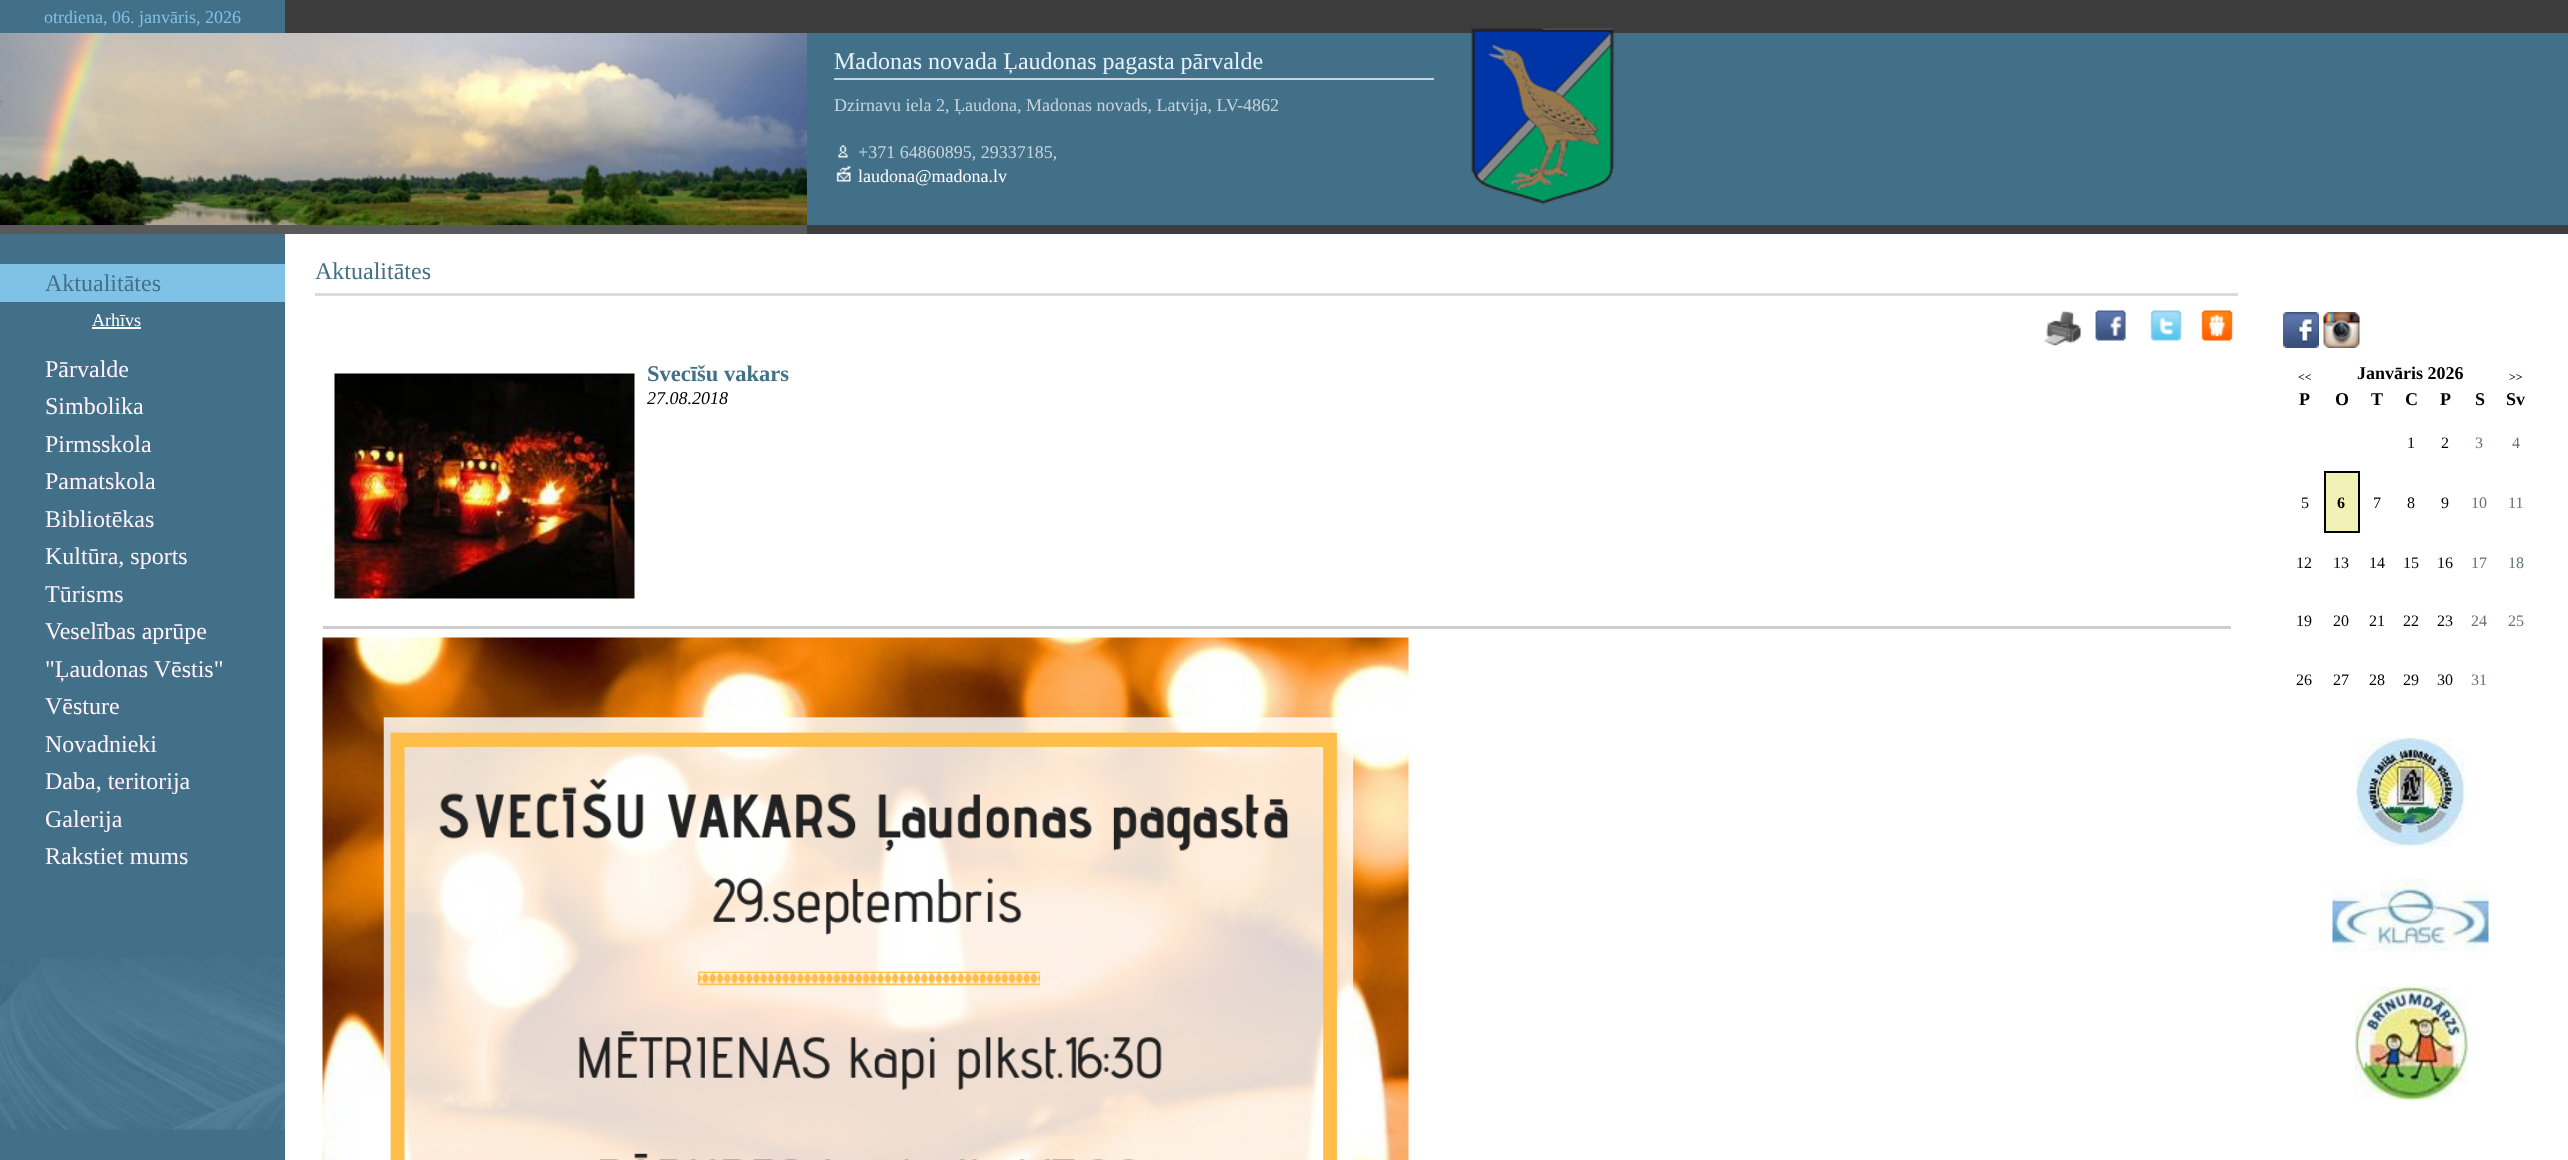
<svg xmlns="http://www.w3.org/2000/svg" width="2568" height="1160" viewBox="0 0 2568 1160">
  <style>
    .t1 { font: 18px Liberation Serif; fill: #7fc2e6; }
    .t2 { font: 24px Liberation Serif; fill: #e5f1f8; }
    .t3 { font: 18px Liberation Serif; fill: #c7d4dc; }
    .t4 { font: 18px Liberation Serif; fill: #fff; }
    .t5 { font: 24px Liberation Serif; fill: #437089; }
    .t6 { font: 24px Liberation Serif; fill: #fff1f9; }
    .t7 { font: bold 22.5px Liberation Serif; fill: #437089; }
    .t8 { font: italic 18px Liberation Serif; fill: #000; }
    .t9 { font: bold 12px Liberation Serif; fill: #000; }
    .t10 { font: bold 18px Liberation Serif; fill: #000; }
    .t11 { font: 16px Liberation Serif; fill: #000; }
    .t12 { font: 16px Liberation Serif; fill: #667171; }
    .t13 { font: bold 16px Liberation Serif; fill: #000; }
  </style>
  <rect width="100%" height="100%" fill="#fff"/>
  <rect x="285" y="0" width="2283" height="33" fill="#3c3c3c"/>
  <rect x="0" y="0" width="285" height="33" fill="#437089"/>
  <text x="44" y="23" class="t1">otrdiena, 06. janvāris, 2026</text>
  <image x="0" y="33" width="807" height="192" href="images/1.png"/>
  <rect x="807" y="33" width="1761" height="192" fill="#437089"/>
  <rect x="834" y="78" width="600" height="2" fill="#c7d4dc"/>
  <text x="834" y="69" class="t2">Madonas novada Ļaudonas pagasta pārvalde</text>
  <image x="1471" y="28" width="144" height="177" href="images/2.png"/>
  <text x="834" y="111" class="t3">Dzirnavu iela 2, Ļaudona, Madonas novads, Latvija, LV-4862</text>
  <image x="838" y="145" width="10" height="13" href="images/3.png"/>
  <text x="858" y="158" class="t3">+371 64860895, 29337185,</text>
  <image x="836" y="166" width="15" height="16" href="images/4.png"/>
  <text x="858" y="182" class="t4">laudona@madona.lv</text>
  <rect x="0" y="225" width="807" height="9" fill="#59595b"/>
  <rect x="807" y="225" width="1761" height="9" fill="#3e3e3e"/>
  <rect x="0" y="234" width="285" height="926" fill="#437089"/>
  <rect x="0" y="264" width="285" height="38" fill="#7fc2e6"/>
  <text x="45" y="291" class="t5">Aktualitātes</text>
  <text x="92" y="326" class="t4">Arhīvs</text>
  <rect x="92" y="327" width="49" height="2" fill="#fff"/>
  <text x="45" y="377" class="t6">Pārvalde</text>
  <text x="45" y="414" class="t6">Simbolika</text>
  <text x="45" y="452" class="t6">Pirmsskola</text>
  <text x="45" y="489" class="t6">Pamatskola</text>
  <text x="45" y="527" class="t6">Bibliotēkas</text>
  <text x="45" y="564" class="t6">Kultūra, sports</text>
  <text x="45" y="602" class="t6">Tūrisms</text>
  <text x="45" y="639" class="t6">Veselības aprūpe</text>
  <text x="45" y="677" class="t6">"Ļaudonas Vēstis"</text>
  <text x="45" y="714" class="t6">Vēsture</text>
  <text x="45" y="752" class="t6">Novadnieki</text>
  <text x="45" y="789" class="t6">Daba, teritorija</text>
  <text x="45" y="827" class="t6">Galerija</text>
  <text x="45" y="864" class="t6">Rakstiet mums</text>
  <image x="0" y="958" width="285" height="172" href="images/5.png"/>
  <rect x="315" y="293" width="1923" height="3" fill="#dbdbdb"/>
  <text x="315" y="279" class="t5">Aktualitātes</text>
  <image x="2044" y="310" width="37" height="36" href="images/6.png"/>
  <image x="2095" y="310" width="31" height="31" href="images/7.png"/>
  <image x="2150" y="310" width="32" height="31" href="images/8.png"/>
  <image x="2201" y="310" width="32" height="31" href="images/9.png"/>
  <image x="334" y="373" width="301" height="226" href="images/10.png"/>
  <text x="647" y="381" class="t7">Svecīšu vakars</text>
  <text x="647" y="404" class="t8">27.08.2018</text>
  <rect x="323" y="626" width="1908" height="3" fill="#ccc"/>
  <image x="322" y="637" width="1087" height="523" href="images/11.png"/>
  <image x="2283" y="312" width="36" height="36" href="images/12.png"/>
  <image x="2323" y="312" width="37" height="36" href="images/13.png"/>
  <text x="2298" y="381" class="t9">&lt;&lt;</text>
  <text x="2357" y="379" class="t10">Janvāris 2026</text>
  <text x="2509" y="381" class="t9">&gt;&gt;</text>
  <text x="2299" y="405" class="t10">P</text>
  <text x="2335" y="405" class="t10">O</text>
  <text x="2371" y="405" class="t10">T</text>
  <text x="2405" y="405" class="t10">C</text>
  <text x="2440" y="405" class="t10">P</text>
  <text x="2475" y="405" class="t10">S</text>
  <text x="2506" y="405" class="t10">Sv</text>
  <text x="2407" y="448" class="t11">1</text>
  <text x="2441" y="448" class="t11">2</text>
  <text x="2475" y="448" class="t12">3</text>
  <text x="2512" y="448" class="t12">4</text>
  <text x="2301" y="508" class="t11">5</text>
  <rect x="2325" y="472" width="34" height="60" fill="#f1f1b6" stroke="#000" stroke-width="2"/>
  <text x="2337" y="508" class="t13">6</text>
  <text x="2373" y="508" class="t11">7</text>
  <text x="2407" y="508" class="t11">8</text>
  <text x="2441" y="508" class="t11">9</text>
  <text x="2471" y="508" class="t12">10</text>
  <text x="2508" y="508" class="t12">11</text>
  <text x="2296" y="568" class="t11">12</text>
  <text x="2333" y="568" class="t11">13</text>
  <text x="2369" y="568" class="t11">14</text>
  <text x="2403" y="568" class="t11">15</text>
  <text x="2437" y="568" class="t11">16</text>
  <text x="2471" y="568" class="t12">17</text>
  <text x="2508" y="568" class="t12">18</text>
  <text x="2296" y="626" class="t11">19</text>
  <text x="2333" y="626" class="t11">20</text>
  <text x="2369" y="626" class="t11">21</text>
  <text x="2403" y="626" class="t11">22</text>
  <text x="2437" y="626" class="t11">23</text>
  <text x="2471" y="626" class="t12">24</text>
  <text x="2508" y="626" class="t12">25</text>
  <text x="2296" y="685" class="t11">26</text>
  <text x="2333" y="685" class="t11">27</text>
  <text x="2369" y="685" class="t11">28</text>
  <text x="2403" y="685" class="t11">29</text>
  <text x="2437" y="685" class="t11">30</text>
  <text x="2471" y="685" class="t12">31</text>
  <image x="2356" y="738" width="109" height="108" href="images/14.png"/>
  <image x="2332" y="879" width="157" height="75" href="images/15.png"/>
  <image x="2355" y="987" width="113" height="113" href="images/16.png"/>
</svg>
